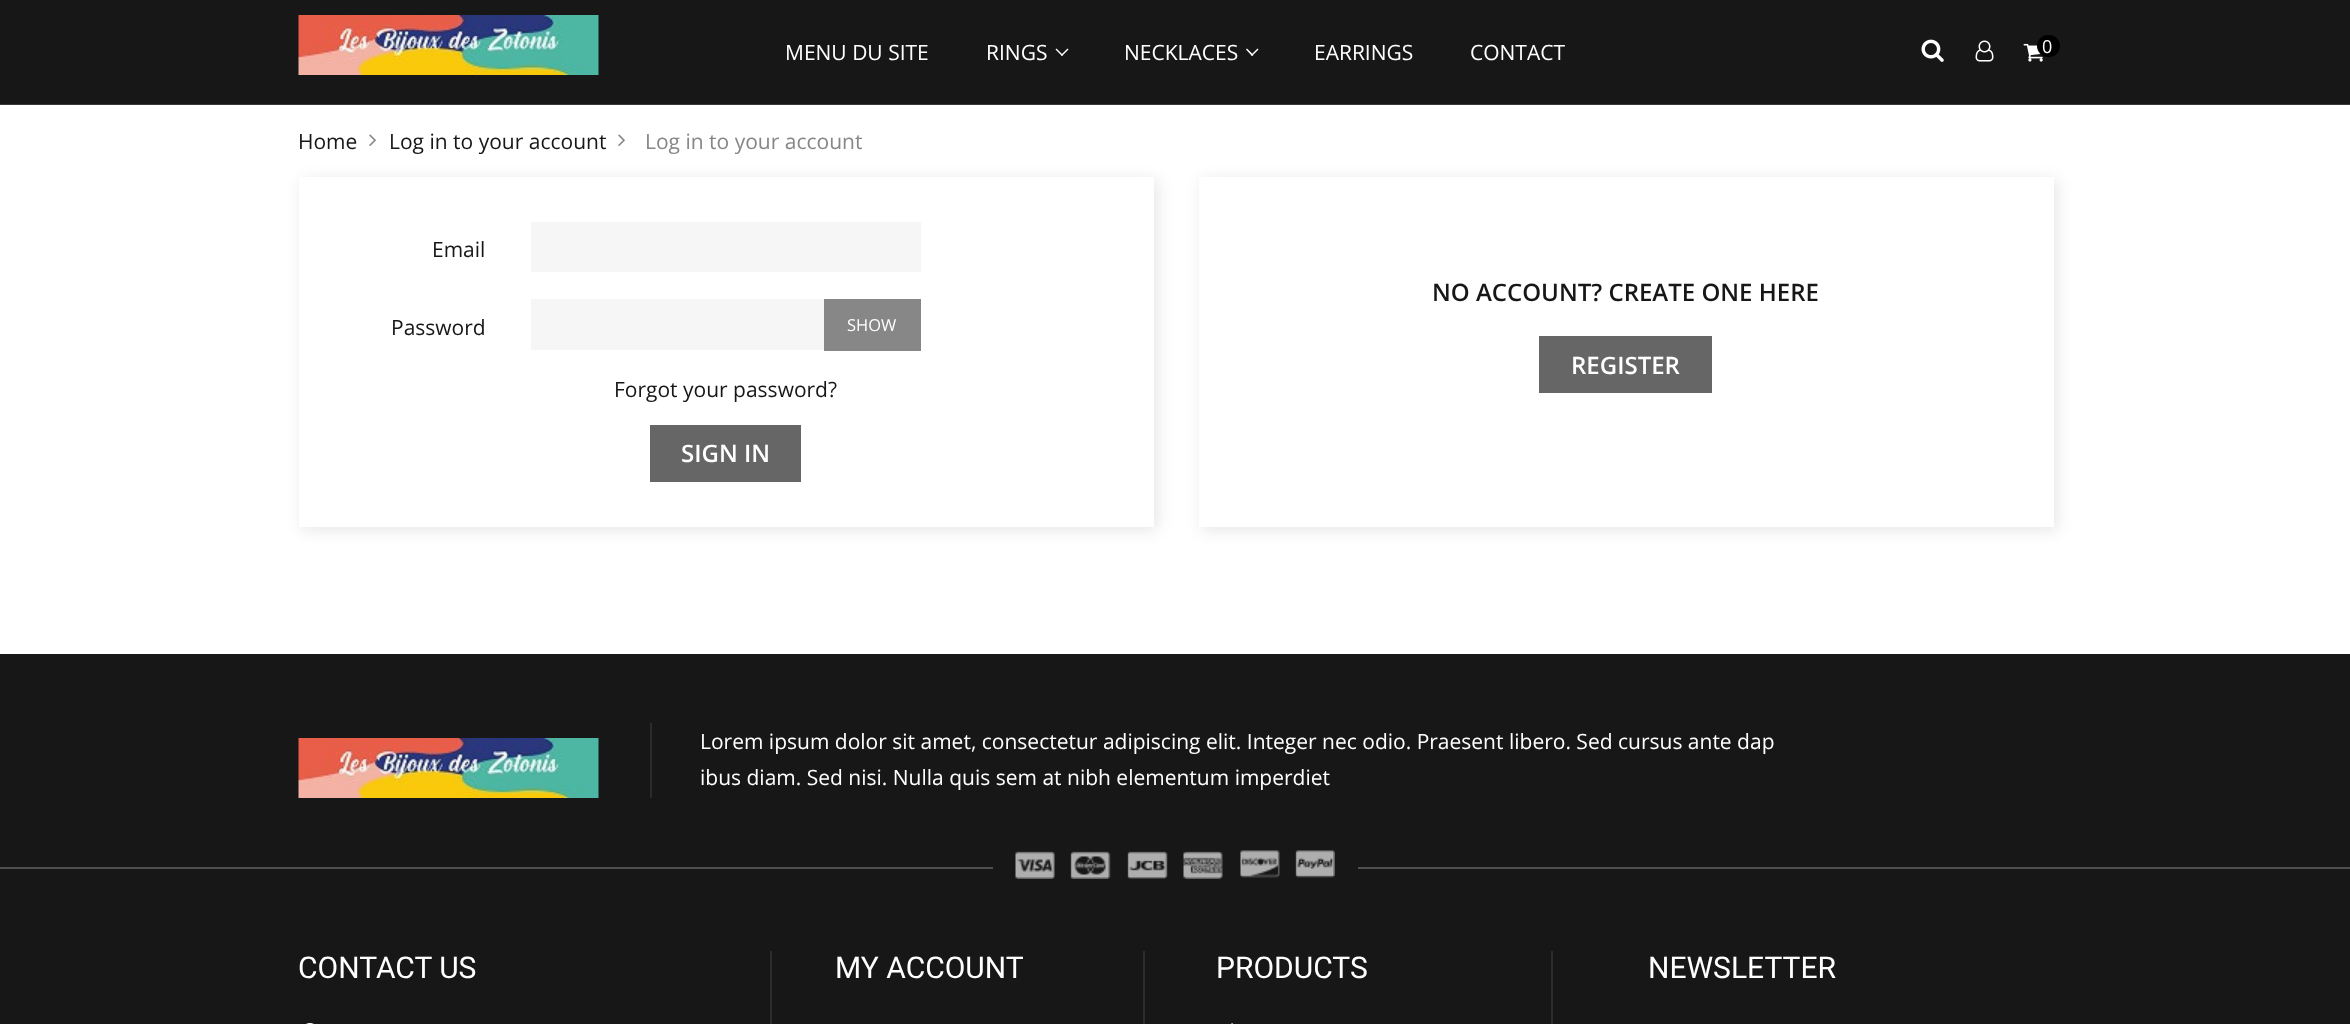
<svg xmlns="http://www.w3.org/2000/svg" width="2350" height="1024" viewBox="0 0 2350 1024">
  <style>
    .t1 { font: 21px Open Sans; fill: #fff; }
    .t2 { font: 18px Open Sans; fill: #fff; }
    .t3 { font: 21px Open Sans; fill: #171717; }
    .t4 { font: 21px Open Sans; fill: #878787; }
    .t5 { font: 16.5px Open Sans; fill: #fff; }
    .t6 { font: 600 24px Open Sans; fill: #fff; }
    .t7 { font: 600 24px Open Sans; fill: #171717; }
    .t8 { font: 30px Roboto; fill: #fff; }
  </style>
  <defs>
    <clipPath id="clip1"><path d="M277 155H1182V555H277ZM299 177H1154V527H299Z" clip-rule="evenodd"/></clipPath>
    <clipPath id="clip2"><path d="M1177 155H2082V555H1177ZM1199 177H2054V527H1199Z" clip-rule="evenodd"/></clipPath>
  </defs>
  <rect width="100%" height="100%" fill="#fff"/>
  <rect x="0" y="0" width="2350" height="104" fill="#171717"/>
  <rect x="0" y="104" width="2350" height="1" fill="#3a3a3a"/>
  <image x="298" y="15" width="301" height="60" href="images/1.png"/>
  <text x="785" y="60" class="t1">MENU DU SITE</text>
  <text x="986" y="60" class="t1">RINGS</text>
  <path d="M1061 55L1067.5 48.5L1068.5 49.5L1062 56Z" fill="#fff"/>
  <path d="M1055.5 49.5L1056.5 48.5L1063 55L1062 56Z" fill="#fff"/>
  <text x="1124" y="60" class="t1">NECKLACES</text>
  <path d="M1251 55L1257.5 48.5L1258.5 49.5L1252 56Z" fill="#fff"/>
  <path d="M1246 49.5L1247 48.5L1253.5 55L1252 56Z" fill="#fff"/>
  <text x="1314" y="60" class="t1">EARRINGS</text>
  <text x="1470" y="60" class="t1">CONTACT</text>
  <image x="1921" y="39" width="23" height="23" href="images/2.png"/>
  <image x="1975" y="40" width="19" height="22" href="images/3.png"/>
  <image x="2023" y="43" width="20" height="19" href="images/4.png"/>
  <rect x="2037" y="35" width="23" height="22" rx="11" fill="#000"/>
  <text x="2042" y="53" class="t2">0</text>
  <text x="298" y="149" class="t3">Home</text>
  <image x="369" y="134" width="7" height="12" href="images/5.png"/>
  <text x="389" y="149" class="t3">Log in to your account</text>
  <image x="618" y="134" width="7" height="12" href="images/5.png"/>
  <text x="645" y="149" class="t4">Log in to your account</text>
  <g clip-path="url(#clip1)">
    <rect x="302" y="180" width="855" height="350" fill="#0000001a" filter="blur(8px)"/>
  </g>
  <text x="432" y="257" class="t3">Email</text>
  <rect x="531" y="222" width="390" height="50" fill="#f6f6f6"/>
  <text x="391" y="335" class="t3">Password</text>
  <rect x="531" y="299" width="293" height="51" fill="#f6f6f6"/>
  <rect x="824" y="299" width="97" height="52" fill="#878787"/>
  <text x="847" y="331" class="t5">SHOW</text>
  <text x="614" y="397" class="t3">Forgot your password?</text>
  <rect x="650" y="425" width="151" height="57" fill="#666"/>
  <text x="681" y="462" class="t6">SIGN IN</text>
  <g clip-path="url(#clip2)">
    <rect x="1202" y="180" width="855" height="350" fill="#0000001a" filter="blur(8px)"/>
  </g>
  <text x="1432" y="301" class="t7">NO ACCOUNT? CREATE ONE HERE</text>
  <rect x="1539" y="336" width="173" height="57" fill="#666"/>
  <text x="1571" y="374" class="t6">REGISTER</text>
  <rect x="0" y="654" width="2350" height="370" fill="#171717"/>
  <image x="298" y="738" width="301" height="60" href="images/6.png"/>
  <rect x="650" y="723" width="2" height="75" fill="#2b2b2b"/>
  <text x="700" y="749" class="t1">Lorem ipsum dolor sit amet, consectetur adipiscing elit. Integer nec odio. Praesent libero. Sed cursus ante dap</text>
  <text x="700" y="785" class="t1">ibus diam. Sed nisi. Nulla quis sem at nibh elementum imperdiet</text>
  <rect x="0" y="867" width="2350" height="2" fill="#4f4f4f"/>
  <rect x="993" y="867" width="365" height="2" fill="#171717"/>
  <image x="1015" y="850" width="320" height="29" href="images/7.png"/>
  <text x="298" y="978" class="t8">CONTACT US</text>
  <rect x="770" y="951" width="2" height="73" fill="#2c2c2c"/>
  <image x="306" y="1023" width="8" height="1" href="images/8.png"/>
  <text x="835" y="978" class="t8">MY ACCOUNT</text>
  <rect x="1143" y="951" width="2" height="73" fill="#2c2c2c"/>
  <text x="1216" y="978" class="t8">PRODUCTS</text>
  <image x="1231" y="1023" width="2" height="1" href="images/9.png"/>
  <rect x="1551" y="951" width="2" height="73" fill="#2c2c2c"/>
  <text x="1648" y="978" class="t8">NEWSLETTER</text>
</svg>
